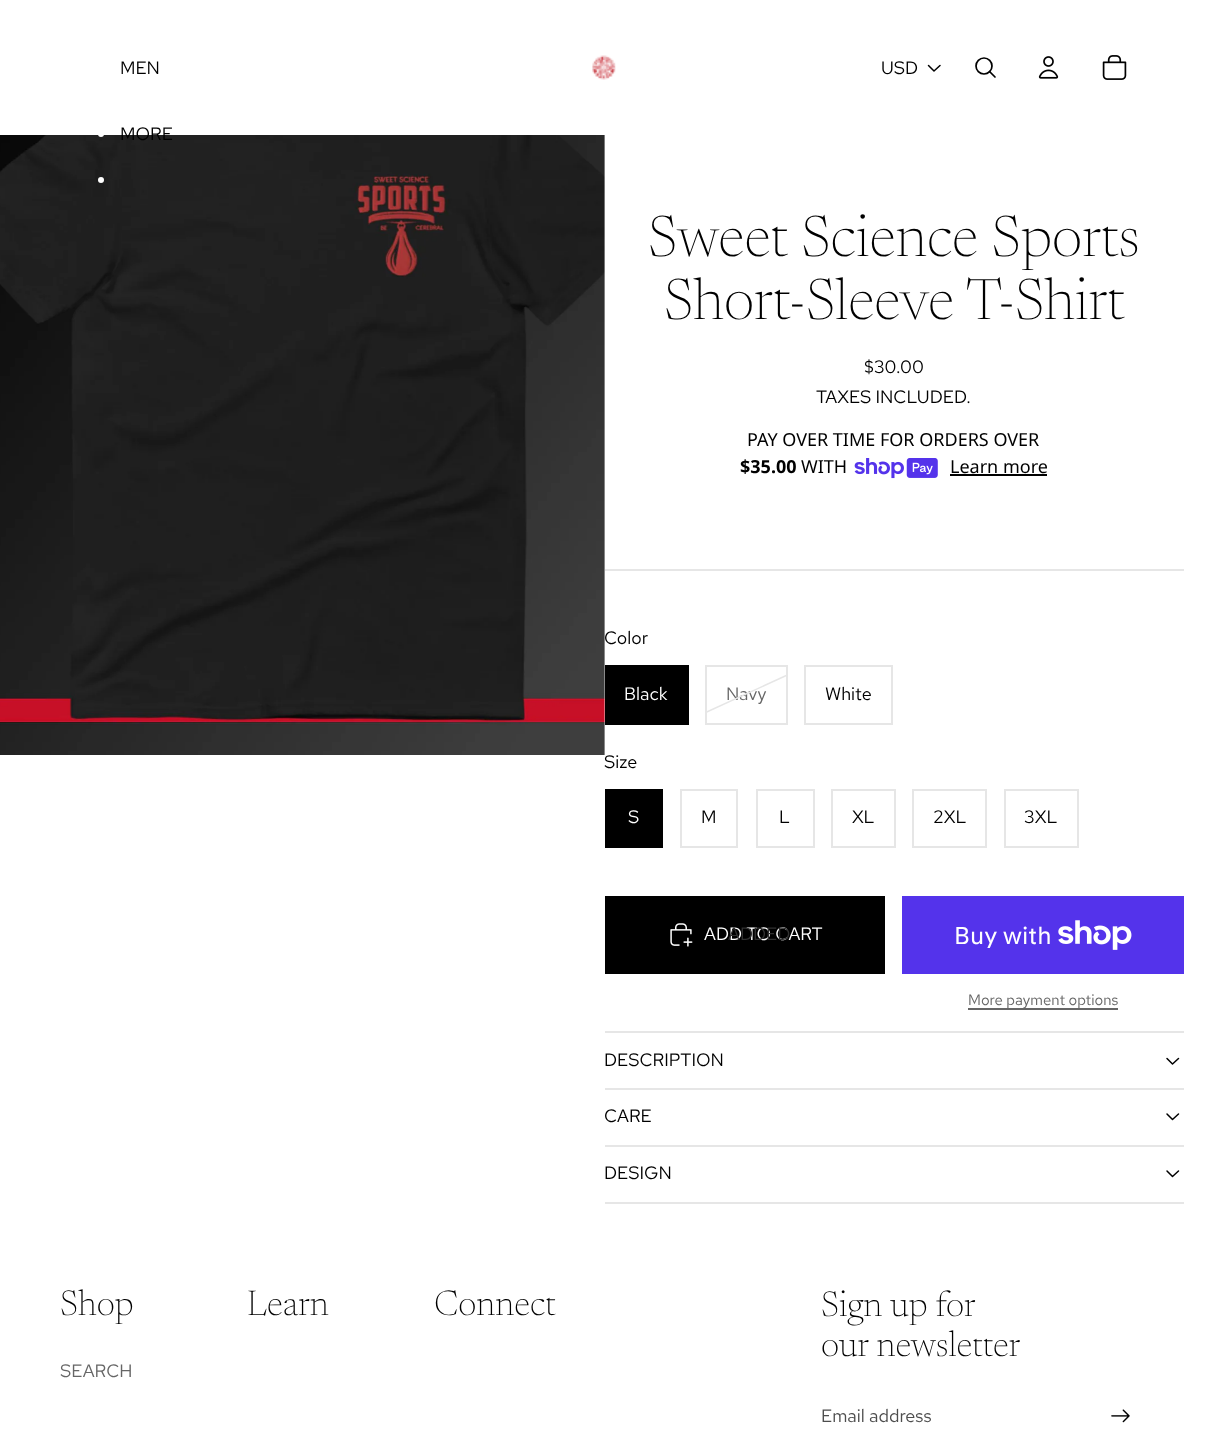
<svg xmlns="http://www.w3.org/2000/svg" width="1207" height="1434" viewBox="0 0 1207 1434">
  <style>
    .t1 { font: 18px Red Hat Text; fill: #000; }
    .t2 { font: 200 58px 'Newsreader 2'; fill: #000; }
    .t3 { font: 18px Noto Sans; fill: #000; }
    .t4 { font: bold 18px Noto Sans; fill: #000; }
    .t5 { font: 18px Red Hat Text; fill: #fff; }
    .t6 { font: 18px Red Hat Text; fill: #666; }
    .t7 { font: 18px Red Hat Text; fill: #303030; }
    .t8 { font: 24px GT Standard; fill: #fff; }
    .t9 { font: 15px Red Hat Text; fill: #666; }
    .t10 { font: 200 36px Newsreader; fill: #000; }
    .t11 { font: 18px Red Hat Text; fill: #4d4d4d; }
  </style>
  <defs>
    <clipPath id="clip1"><rect x="707" y="666" width="79" height="57"/></clipPath>
  </defs>
  <rect width="100%" height="100%" fill="#fff"/>
  <text x="120" y="74" class="t1">MEN</text>
  <image x="0" y="135" width="605" height="620" href="images/4.png"/>
  <circle cx="101" cy="134" r="3" fill="#fff"/>
  <text x="120" y="140" class="t1">MORE</text>
  <circle cx="101" cy="180" r="3" fill="#fff"/>
  <image x="592" y="55" width="24" height="25" href="images/1.png"/>
  <text x="881" y="74" class="t1">USD</text>
  <path d="M940 65.5L934 71L928.5 65.5" fill="none" stroke="#000" stroke-width="1.5" stroke-linecap="round" stroke-linejoin="round"/>
  <circle cx="984" cy="66" r="8" fill="none" stroke="#000" stroke-width="1.7"/>
  <path d="M989.5 71.5L995 77" fill="none" stroke="#000" stroke-width="1.7" stroke-linecap="round" stroke-linejoin="round"/>
  <image x="1038" y="56" width="21" height="23" href="images/2.png"/>
  <image x="1102" y="55" width="25" height="25" href="images/3.png"/>
  <text x="648" y="256" class="t2">Sweet Science Sports</text>
  <text x="664" y="319" class="t2">Short-Sleeve T-Shirt</text>
  <text x="864" y="373" class="t1">$30.00</text>
  <text x="816" y="403" class="t1">TAXES INCLUDED.</text>
  <text x="747" y="446" class="t3">PAY OVER TIME FOR ORDERS OVER</text>
  <text x="740" y="473" class="t4">$35.00</text>
  <text x="801" y="473" class="t3">WITH</text>
  <image x="854" y="458" width="84" height="21" href="images/5.png"/>
  <text x="950" y="473" class="t3">Learn more</text>
  <rect x="950" y="474" width="97" height="2" fill="#000"/>
  <rect x="605" y="569" width="579" height="2" fill="#e6e6e6"/>
  <text x="604" y="644" class="t1">Color</text>
  <rect x="605" y="665" width="84" height="60" fill="#000"/>
  <text x="624" y="700" class="t5">Black</text>
  <rect x="706" y="666" width="81" height="58" fill="none" stroke="#e6e6e6" stroke-width="2"/>
  <text x="726" y="700" class="t6">Navy</text>
  <g clip-path="url(#clip1)">
    <path d="M807 666L685 722" fill="none" stroke="#e6e6e6" stroke-width="1.5"/>
  </g>
  <rect x="805" y="666" width="87" height="58" fill="none" stroke="#e6e6e6" stroke-width="2"/>
  <text x="825" y="700" class="t1">White</text>
  <text x="604" y="768" class="t1">Size</text>
  <rect x="605" y="789" width="58" height="59" fill="#000"/>
  <text x="628" y="823" class="t5">S</text>
  <rect x="681" y="790" width="56" height="57" fill="none" stroke="#e6e6e6" stroke-width="2"/>
  <text x="701" y="823" class="t1">M</text>
  <rect x="757" y="790" width="57" height="57" fill="none" stroke="#e6e6e6" stroke-width="2"/>
  <text x="779" y="823" class="t1">L</text>
  <rect x="832" y="790" width="63" height="57" fill="none" stroke="#e6e6e6" stroke-width="2"/>
  <text x="852" y="823" class="t1">XL</text>
  <rect x="913" y="790" width="73" height="57" fill="none" stroke="#e6e6e6" stroke-width="2"/>
  <text x="933" y="823" class="t1">2XL</text>
  <rect x="1005" y="790" width="73" height="57" fill="none" stroke="#e6e6e6" stroke-width="2"/>
  <text x="1024" y="823" class="t1">3XL</text>
  <rect x="605" y="896" width="280" height="78" fill="#000"/>
  <image x="670" y="923" width="23" height="24" href="images/6.png"/>
  <text x="704" y="940" class="t5">ADD TO CART</text>
  <text x="728" y="940" class="t7">ADDED</text>
  <rect x="902" y="896" width="282" height="78" fill="#5433eb"/>
  <text x="954" y="944" class="t8">Buy with</text>
  <image x="1058" y="920" width="74" height="30" href="images/7.png"/>
  <rect x="968" y="1008" width="150" height="2" fill="#666"/>
  <text x="968" y="1005" class="t9">More payment options</text>
  <rect x="605" y="1031" width="579" height="2" fill="#e6e6e6"/>
  <text x="604" y="1066" class="t1">DESCRIPTION</text>
  <path d="M1178.5 1058.5L1172.5 1064L1167 1058.5" fill="none" stroke="#000" stroke-width="1.5" stroke-linecap="round" stroke-linejoin="round"/>
  <rect x="605" y="1088" width="579" height="2" fill="#e6e6e6"/>
  <text x="604" y="1122" class="t1">CARE</text>
  <path d="M1178.5 1114L1172.5 1119.5L1167 1114" fill="none" stroke="#000" stroke-width="1.5" stroke-linecap="round" stroke-linejoin="round"/>
  <rect x="605" y="1145" width="579" height="2" fill="#e6e6e6"/>
  <rect x="605" y="1202" width="579" height="2" fill="#e6e6e6"/>
  <text x="604" y="1179" class="t1">DESIGN</text>
  <path d="M1178.5 1171L1172.5 1176.5L1167 1171" fill="none" stroke="#000" stroke-width="1.5" stroke-linecap="round" stroke-linejoin="round"/>
  <text x="60" y="1315" class="t10">Shop</text>
  <text x="60" y="1377" class="t6">SEARCH</text>
  <text x="247" y="1315" class="t10">Learn</text>
  <text x="434" y="1315" class="t10">Connect</text>
  <text x="821" y="1316" class="t10">Sign up for</text>
  <text x="821" y="1356" class="t10">our newsletter</text>
  <text x="821" y="1422" class="t11">Email address</text>
  <image x="1111" y="1409" width="19" height="14" href="images/8.png"/>
</svg>
